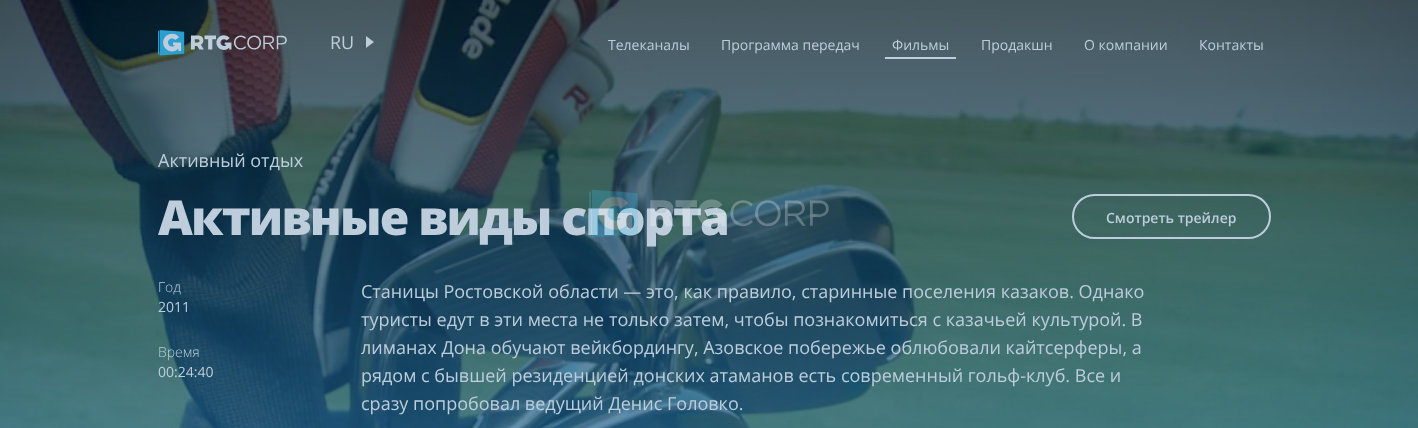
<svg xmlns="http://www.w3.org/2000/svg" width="1418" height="428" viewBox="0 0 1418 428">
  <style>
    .t1 { font: 18px Open Sans; fill: #bdcddb; }
    .t2 { font: 14px Open Sans; fill: #bdcddb; }
    .t3 { font: 800 48px Open Sans; letter-spacing: -1.8px; fill: #bdcddb; }
    .t4 { font: 600 14px Open Sans; fill: #bdcddb; }
    .t5 { font: 300 14px Open Sans; fill: #bdcddb; }
  </style>
  <rect width="100%" height="100%" fill="#fff"/>
  <image x="0" y="0" width="1418" height="428" href="images/1.png"/>
  <image x="158" y="30" width="129" height="26" href="images/2.png"/>
  <text x="330" y="49" class="t1">RU</text>
  <path d="M366 48V36L374 42Z" fill="#bdcddb"/>
  <text x="608" y="50" class="t2">Телеканалы</text>
  <text x="721" y="50" class="t2">Программа передач</text>
  <text x="892" y="50" class="t2">Фильмы</text>
  <rect x="885" y="57" width="71" height="2" fill="#bdcddb"/>
  <text x="981" y="50" class="t2">Продакшн</text>
  <text x="1084" y="50" class="t2">О компании</text>
  <text x="1199" y="50" class="t2">Контакты</text>
  <text x="158" y="167" class="t1">Активный отдых</text>
  <text x="158" y="235" class="t3">Активные виды спорта</text>
  <rect x="1073" y="195" width="197" height="43" rx="21.5" fill="none" stroke="#bdcddb" stroke-width="2"/>
  <text x="1106" y="223" class="t4">Смотреть трейлер</text>
  <text x="158" y="292" class="t5">Год</text>
  <text x="158" y="312" class="t2">2011</text>
  <text x="158" y="357" class="t5">Время</text>
  <text x="158" y="377" class="t2">00:24:40</text>
  <text x="361" y="298" class="t1">Станицы Ростовской области — это, как правило, старинные поселения казаков. Однако</text>
  <text x="361" y="326" class="t1">туристы едут в эти места не только затем, чтобы познакомиться с казачьей культурой. В</text>
  <text x="361" y="354" class="t1">лиманах Дона обучают вейкбордингу, Азовское побережье облюбовали кайтсерферы, а</text>
  <text x="361" y="382" class="t1">рядом с бывшей резиденцией донских атаманов есть современный гольф-клуб. Все и</text>
  <text x="361" y="410" class="t1">сразу попробовал ведущий Денис Головко.</text>
  <image x="589" y="189" width="240" height="49" href="images/3.png"/>
</svg>
